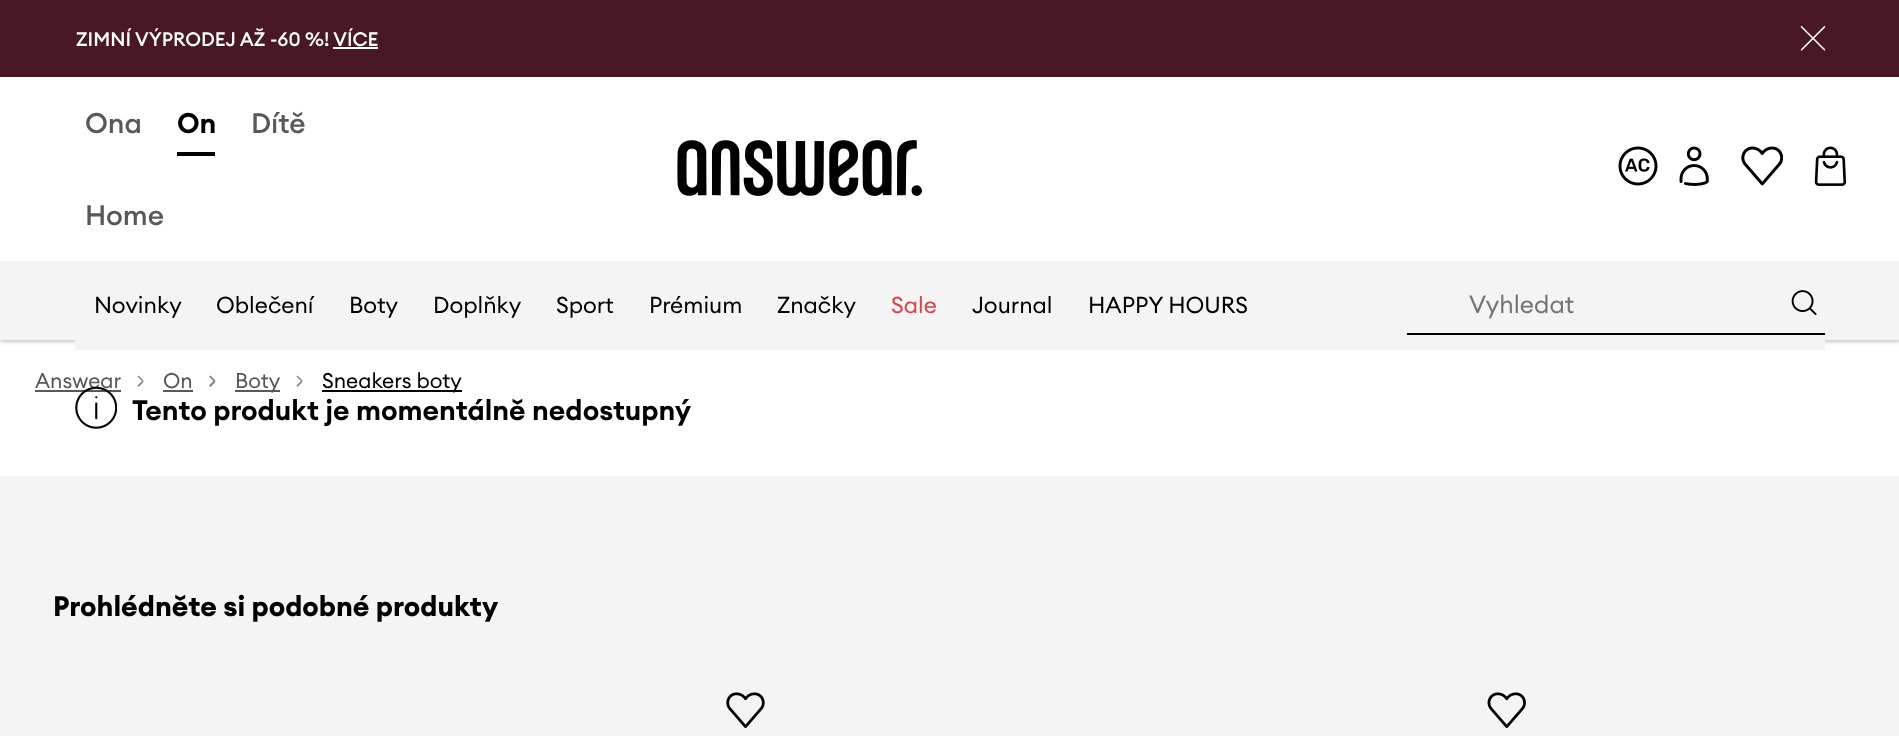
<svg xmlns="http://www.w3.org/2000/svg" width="1899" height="736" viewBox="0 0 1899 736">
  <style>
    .t1 { font: 500 19.25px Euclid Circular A; fill: #fff; }
    .t2 { font: 500 28px Euclid Circular A; fill: #585858; }
    .t3 { font: 600 28px Euclid Circular A; fill: #000; }
    .t4 { font: 22.75px Euclid Circular A; fill: #000; }
    .t5 { font: 22.75px Euclid Circular A; fill: #da4448; }
    .t6 { font: 24.5px Euclid Circular A; fill: #757575; }
    .t7 { font: 21px Euclid Circular A; fill: #585858; }
    .t8 { font: 21px Euclid Circular A; fill: #000; }
    .t9 { font: bold 28px Euclid Circular A; fill: #000; }
  </style>
  <rect width="100%" height="100%" fill="#fff"/>
  <rect x="0" y="0" width="1899" height="77" fill="#481824"/>
  <text x="76" y="46" class="t1">ZIMNÍ VÝPRODEJ AŽ -60 %! VÍCE</text>
  <rect x="333" y="47" width="45" height="2" fill="#fff"/>
  <image x="1800" y="26" width="26" height="25" href="images/1.png"/>
  <rect x="0" y="79" width="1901" height="262" fill="#0000004d" filter="blur(2.5px)"/>
  <rect x="0" y="77" width="1899" height="184" fill="#fff"/>
  <text x="85" y="133" class="t2">Ona</text>
  <text x="177" y="133" class="t3">On</text>
  <rect x="177" y="152" width="38" height="4" fill="#000"/>
  <text x="251" y="133" class="t2">Dítě</text>
  <text x="85" y="225" class="t2">Home</text>
  <image x="677" y="140" width="245" height="56" href="images/2.png"/>
  <image x="1618" y="146" width="40" height="40" href="images/3.png"/>
  <image x="1679" y="146" width="30" height="40" href="images/4.png"/>
  <image x="1741" y="146" width="42" height="40" href="images/5.png"/>
  <image x="1814" y="146" width="32" height="40" href="images/6.png"/>
  <rect x="0" y="261" width="1899" height="79" fill="#f4f4f4"/>
  <rect x="75" y="340" width="1750" height="10" fill="#f4f4f4"/>
  <text x="94" y="313" class="t4">Novinky</text>
  <text x="216" y="313" class="t4">Oblečení</text>
  <text x="349" y="313" class="t4">Boty</text>
  <text x="433" y="313" class="t4">Doplňky</text>
  <text x="556" y="313" class="t4">Sport</text>
  <text x="649" y="313" class="t4">Prémium</text>
  <text x="777" y="313" class="t4">Značky</text>
  <text x="891" y="313" class="t5">Sale</text>
  <text x="972" y="313" class="t4">Journal</text>
  <text x="1088" y="313" class="t4">HAPPY HOURS</text>
  <rect x="1407" y="333" width="418" height="2" fill="#000"/>
  <text x="1469" y="313" class="t6">Vyhledat</text>
  <image x="1791" y="290" width="26" height="25" href="images/7.png"/>
  <text x="35" y="388" class="t7">Answear</text>
  <rect x="35" y="390" width="86" height="2" fill="#585858"/>
  <path d="M137.5 385.5L142.5 380.5L143.5 382L138.5 387Z" fill="#848484"/>
  <path d="M138.5 375.5L143.5 380.5L142.5 381.5L137.5 376.5Z" fill="#848484"/>
  <text x="163" y="388" class="t7">On</text>
  <rect x="163" y="390" width="30" height="2" fill="#585858"/>
  <path d="M209 385.5L214 380.5L215.5 382L210.5 387Z" fill="#848484"/>
  <path d="M210.5 375.5L215.5 380.5L214 381.5L209 376.5Z" fill="#848484"/>
  <rect x="235" y="390" width="45" height="2" fill="#585858"/>
  <text x="235" y="388" class="t7">Boty</text>
  <path d="M296.5 385.5L301.5 380.5L302.5 382L297.5 387Z" fill="#848484"/>
  <path d="M297.5 375.5L302.5 380.5L301.5 381.5L296.5 376.5Z" fill="#848484"/>
  <rect x="322" y="390" width="140" height="2" fill="#000"/>
  <text x="322" y="388" class="t8">Sneakers boty</text>
  <image x="75" y="387" width="42" height="42" href="images/8.png"/>
  <text x="132" y="420" class="t3">Tento produkt je momentálně nedostupný</text>
  <rect x="0" y="476" width="1899" height="260" fill="#f4f4f4"/>
  <text x="53" y="616" class="t9">Prohlédněte si podobné produkty</text>
  <image x="726" y="692" width="39" height="36" href="images/9.png"/>
  <image x="1487" y="692" width="39" height="36" href="images/10.png"/>
</svg>
